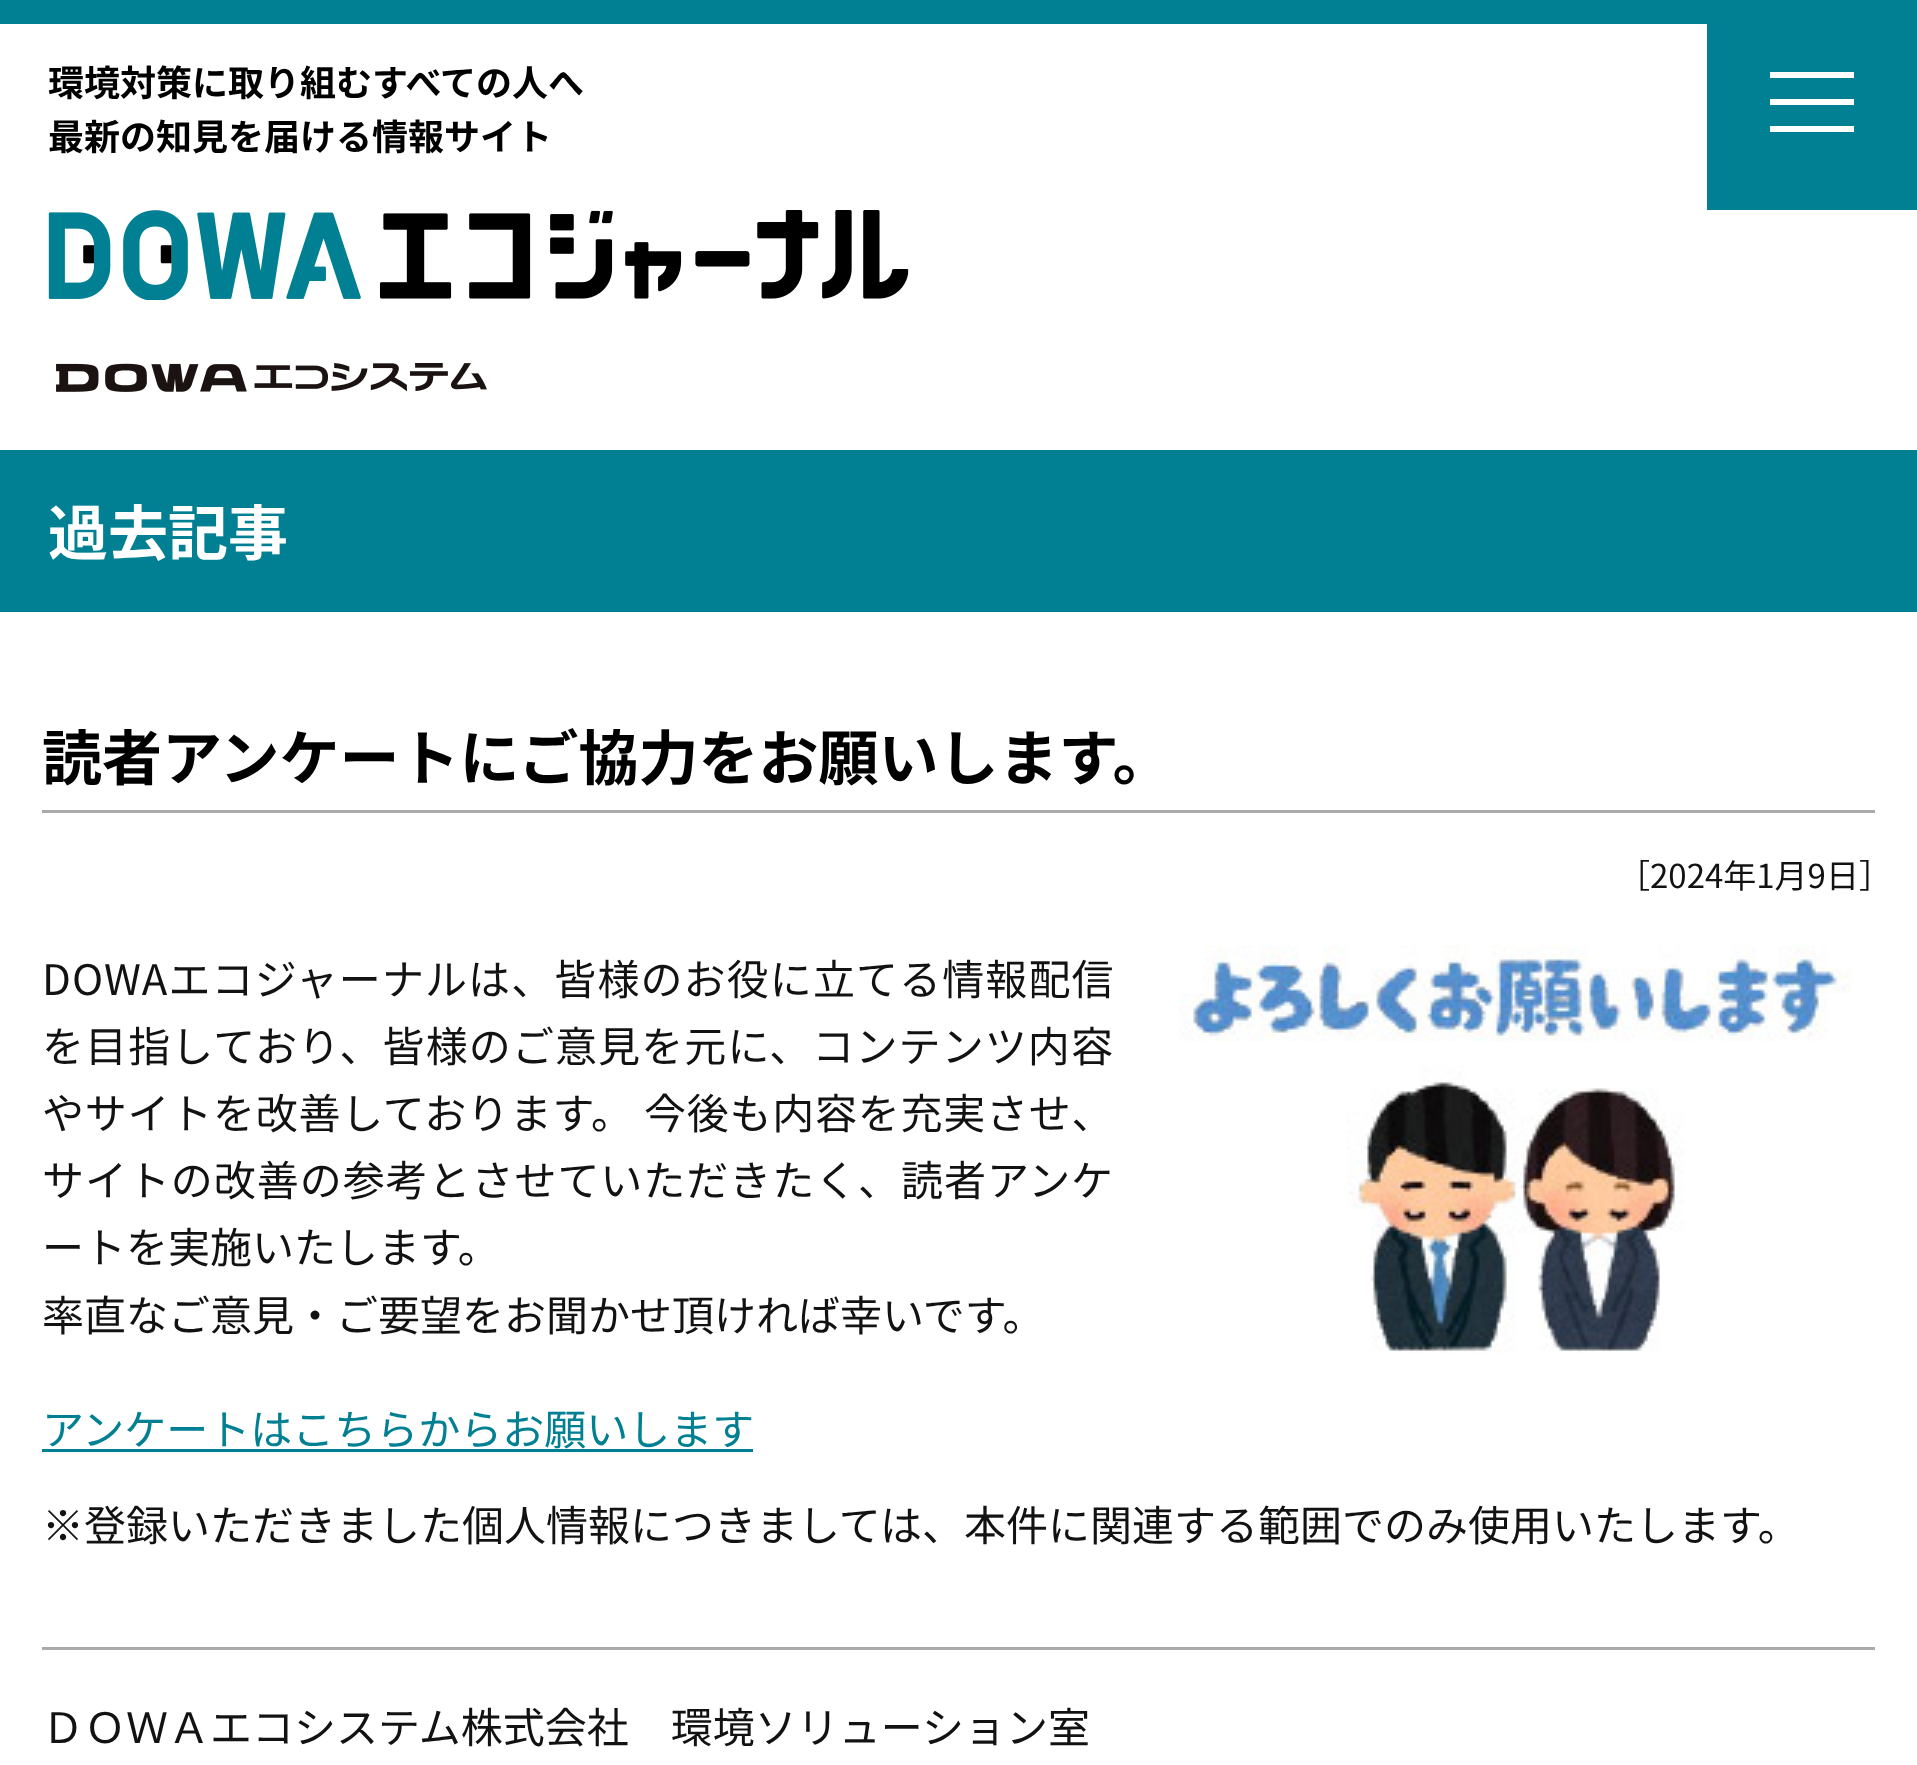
<svg xmlns="http://www.w3.org/2000/svg" width="1917" height="1765" viewBox="0 0 1917 1765">
  <style>
    .t1 { font: bold 36px Noto Sans JP; fill: #000; }
    .t2 { font: bold 60px Noto Sans JP; fill: #fff; }
    .t3 { font: bold 60px Noto Sans JP; fill: #000; }
    .t4 { font: 33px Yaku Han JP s; fill: #121212; }
    .t5 { font: 33px Noto Sans JP; fill: #121212; }
    .t6 { font: 42px Noto Sans JP; letter-spacing: 1.1px; fill: #121212; }
    .t7 { font: 42px Noto Sans JP; letter-spacing: 0.75px; fill: #121212; }
    .t8 { font: 42px Noto Sans JP; letter-spacing: 0.95px; fill: #121212; }
    .t9 { font: 42px Noto Sans JP; fill: #121212; }
    .t10 { font: 42px Noto Sans JP; fill: #008092; }
  </style>
  <rect width="100%" height="100%" fill="#fff"/>
  <rect x="0" y="0" width="1707" height="24" fill="#008092"/>
  <text x="48" y="96" class="t1">環境対策に取り組むすべての人へ</text>
  <text x="48" y="150" class="t1">最新の知見を届ける情報サイト</text>
  <image x="48" y="210" width="861" height="90" href="images/1.png"/>
  <image x="56" y="363" width="431" height="29" href="images/2.png"/>
  <rect x="1707" y="0" width="210" height="210" fill="#008092"/>
  <rect x="1770" y="72" width="84" height="6" fill="#fff"/>
  <rect x="1770" y="99" width="84" height="6" fill="#fff"/>
  <rect x="1770" y="126" width="84" height="6" fill="#fff"/>
  <rect x="0" y="450" width="1917" height="162" fill="#008092"/>
  <text x="48" y="555" class="t2">過去記事</text>
  <rect x="42" y="810" width="1833" height="3" fill="#aaa"/>
  <text x="42" y="780" class="t3">読者アンケートにご協力をお願いします。</text>
  <text x="1634" y="888" class="t4">［</text>
  <text x="1650" y="888" class="t5">2024年1月9日</text>
  <text x="1859" y="888" class="t4">］</text>
  <text x="42" y="995" class="t6">DOWAエコジャーナルは、皆様のお役に立てる情報配信</text>
  <image x="1179" y="944" width="673" height="409" href="images/3.png"/>
  <text x="42" y="1062" class="t6">を目指しており、皆様のご意見を元に、コンテンツ内容</text>
  <text x="42" y="1129" class="t7">やサイトを改善しております。</text>
  <text x="644" y="1129" class="t7">今後も内容を充実させ、</text>
  <text x="42" y="1196" class="t8">サイトの改善の参考とさせていただきたく、読者アンケ</text>
  <text x="42" y="1263" class="t9">ートを実施いたします。</text>
  <text x="42" y="1331" class="t9">率直なご意見・ご要望をお聞かせ頂ければ幸いです。</text>
  <text x="42" y="1445" class="t10">アンケートはこちらからお願いします</text>
  <rect x="42" y="1449" width="711" height="3" fill="#008092"/>
  <text x="42" y="1541" class="t9">※登録いただきました個人情報につきましては、本件に関連する範囲でのみ使用いたします。</text>
  <rect x="42" y="1647" width="1833" height="3" fill="#aaa"/>
  <text x="42" y="1743" class="t9">ＤＯＷＡエコシステム株式会社　環境ソリューション室</text>
</svg>
